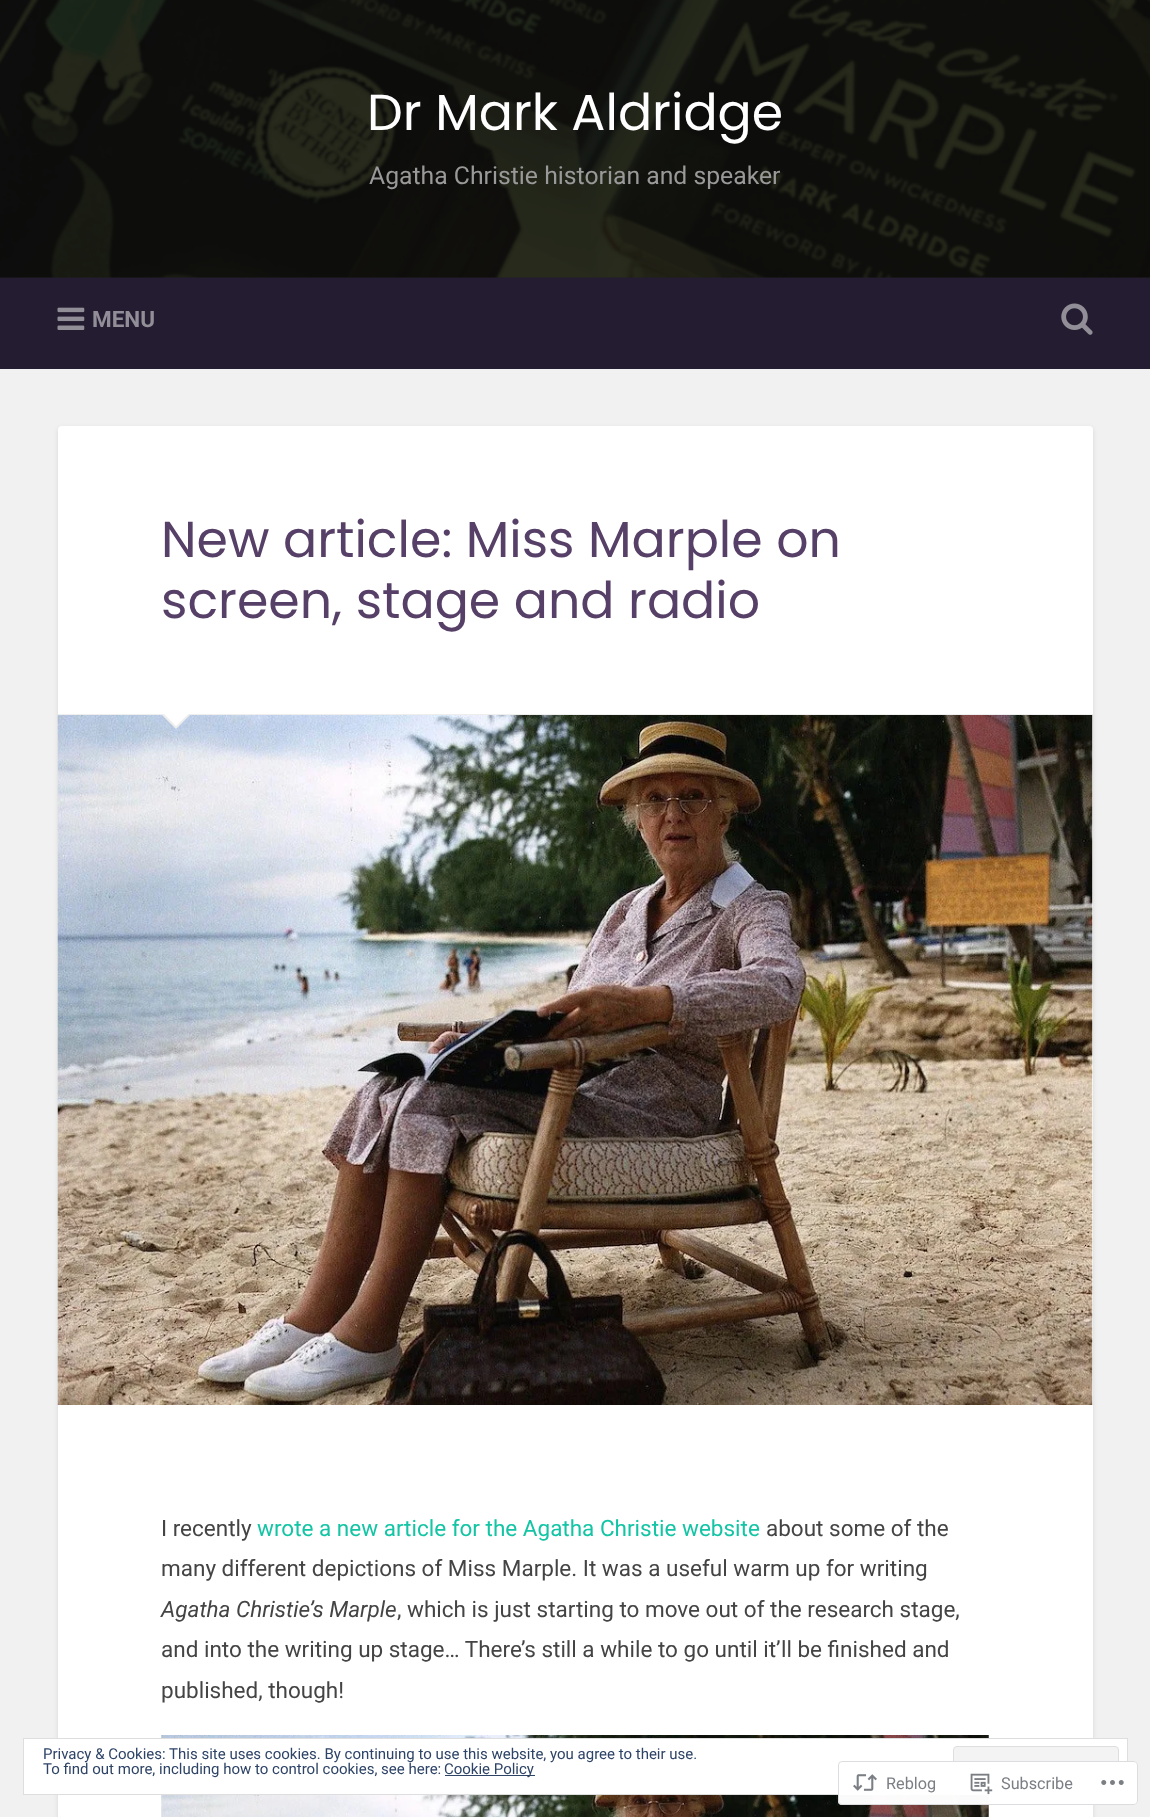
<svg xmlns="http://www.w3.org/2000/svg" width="1150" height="1817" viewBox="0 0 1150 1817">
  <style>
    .t1 { font: 50.6px Poppins; fill: #fff; }
    .t2 { font: 24.75px Roboto; fill: #999; }
    .t3 { font: bold 22.5px Roboto; fill: #928e98; }
    .t4 { font: 50.6px Poppins; fill: #574067; }
    .t5 { font: 22.5px Roboto; fill: #444; }
    .t6 { font: 22.5px Roboto; fill: #13c4a5; }
    .t7 { font: italic 22.5px Roboto; fill: #444; }
    .t8 { font: 15px Roboto; fill: #2e4467; }
    .t9 { font: 16.25px Roboto; fill: #7b7f85; }
  </style>
  <rect width="100%" height="100%" fill="#f1f1f1"/>
  <rect x="0" y="277" width="1150" height="1" fill="#221c2b"/>
  <image x="0" y="0" width="1150" height="278" href="images/1.png"/>
  <text x="367" y="130" class="t1">Dr Mark Aldridge</text>
  <text x="369" y="184" class="t2">Agatha Christie historian and speaker</text>
  <rect x="0" y="278" width="1150" height="91" fill="#241c30"/>
  <image x="57" y="307" width="28" height="23" href="images/2.png"/>
  <text x="92" y="327" class="t3">MENU</text>
  <image x="1061" y="303" width="32" height="32" href="images/3.png"/>
  <rect x="58" y="428" width="1035" height="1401" rx="4" fill="#0000001a" filter="blur(2.5px)"/>
  <rect x="58" y="426" width="1035" height="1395" rx="4" fill="#fff"/>
  <rect x="58" y="714" width="1035" height="1" fill="#eee"/>
  <text x="161" y="557" class="t4">New article: Miss Marple on</text>
  <text x="161" y="618" class="t4">screen, stage and radio</text>
  <image x="57" y="715" width="1036" height="690" href="images/4.png"/>
  <path d="M161 714H191L176 729Z" fill="#eee"/>
  <path d="M162.5 712.5H190L176 726Z" fill="#fff"/>
  <text x="161" y="1536" class="t5">I recently</text>
  <text x="257" y="1536" class="t6">wrote a new article for the Agatha Christie website</text>
  <text x="766" y="1536" class="t5">about some of the</text>
  <text x="161" y="1576" class="t5">many different depictions of Miss Marple. It was a useful warm up for writing</text>
  <text x="161" y="1617" class="t7">Agatha Christie’s Marple</text>
  <text x="397" y="1617" class="t5">, which is just starting to move out of the research stage,</text>
  <text x="161" y="1657" class="t5">and into the writing up stage… There’s still a while to go until it’ll be finished and</text>
  <text x="161" y="1698" class="t5">published, though!</text>
  <image x="161" y="1735" width="828" height="82" href="images/5.png"/>
  <rect x="23.5" y="1738.5" width="1104" height="56" fill="#fff" stroke="#dedede"/>
  <text x="43" y="1759" class="t8">Privacy &amp; Cookies: This site uses cookies. By continuing to use this website, you agree to their use.</text>
  <rect x="953.5" y="1746.5" width="165" height="39" rx="3.5" fill="#f3f3f3" stroke="#dedede"/>
  <text x="43" y="1774" class="t8">To find out more, including how to control cookies, see here:</text>
  <rect x="445" y="1775" width="90" height="1" fill="#2e4467"/>
  <text x="444" y="1774" class="t8">Cookie Policy</text>
  <rect x="838" y="1761" width="300" height="44" rx="4" fill="#fffffffa"/>
  <rect x="838.5" y="1761.5" width="299" height="43" rx="3.5" fill="none" stroke="#dcdcdefa"/>
  <image x="853" y="1774" width="24" height="17" href="images/6.png"/>
  <text x="886" y="1789" class="t9">Reblog</text>
  <image x="970" y="1773" width="23" height="22" href="images/7.png"/>
  <text x="1001" y="1789" class="t9">Subscribe</text>
  <image x="1101" y="1780" width="23" height="5" href="images/8.png"/>
</svg>
